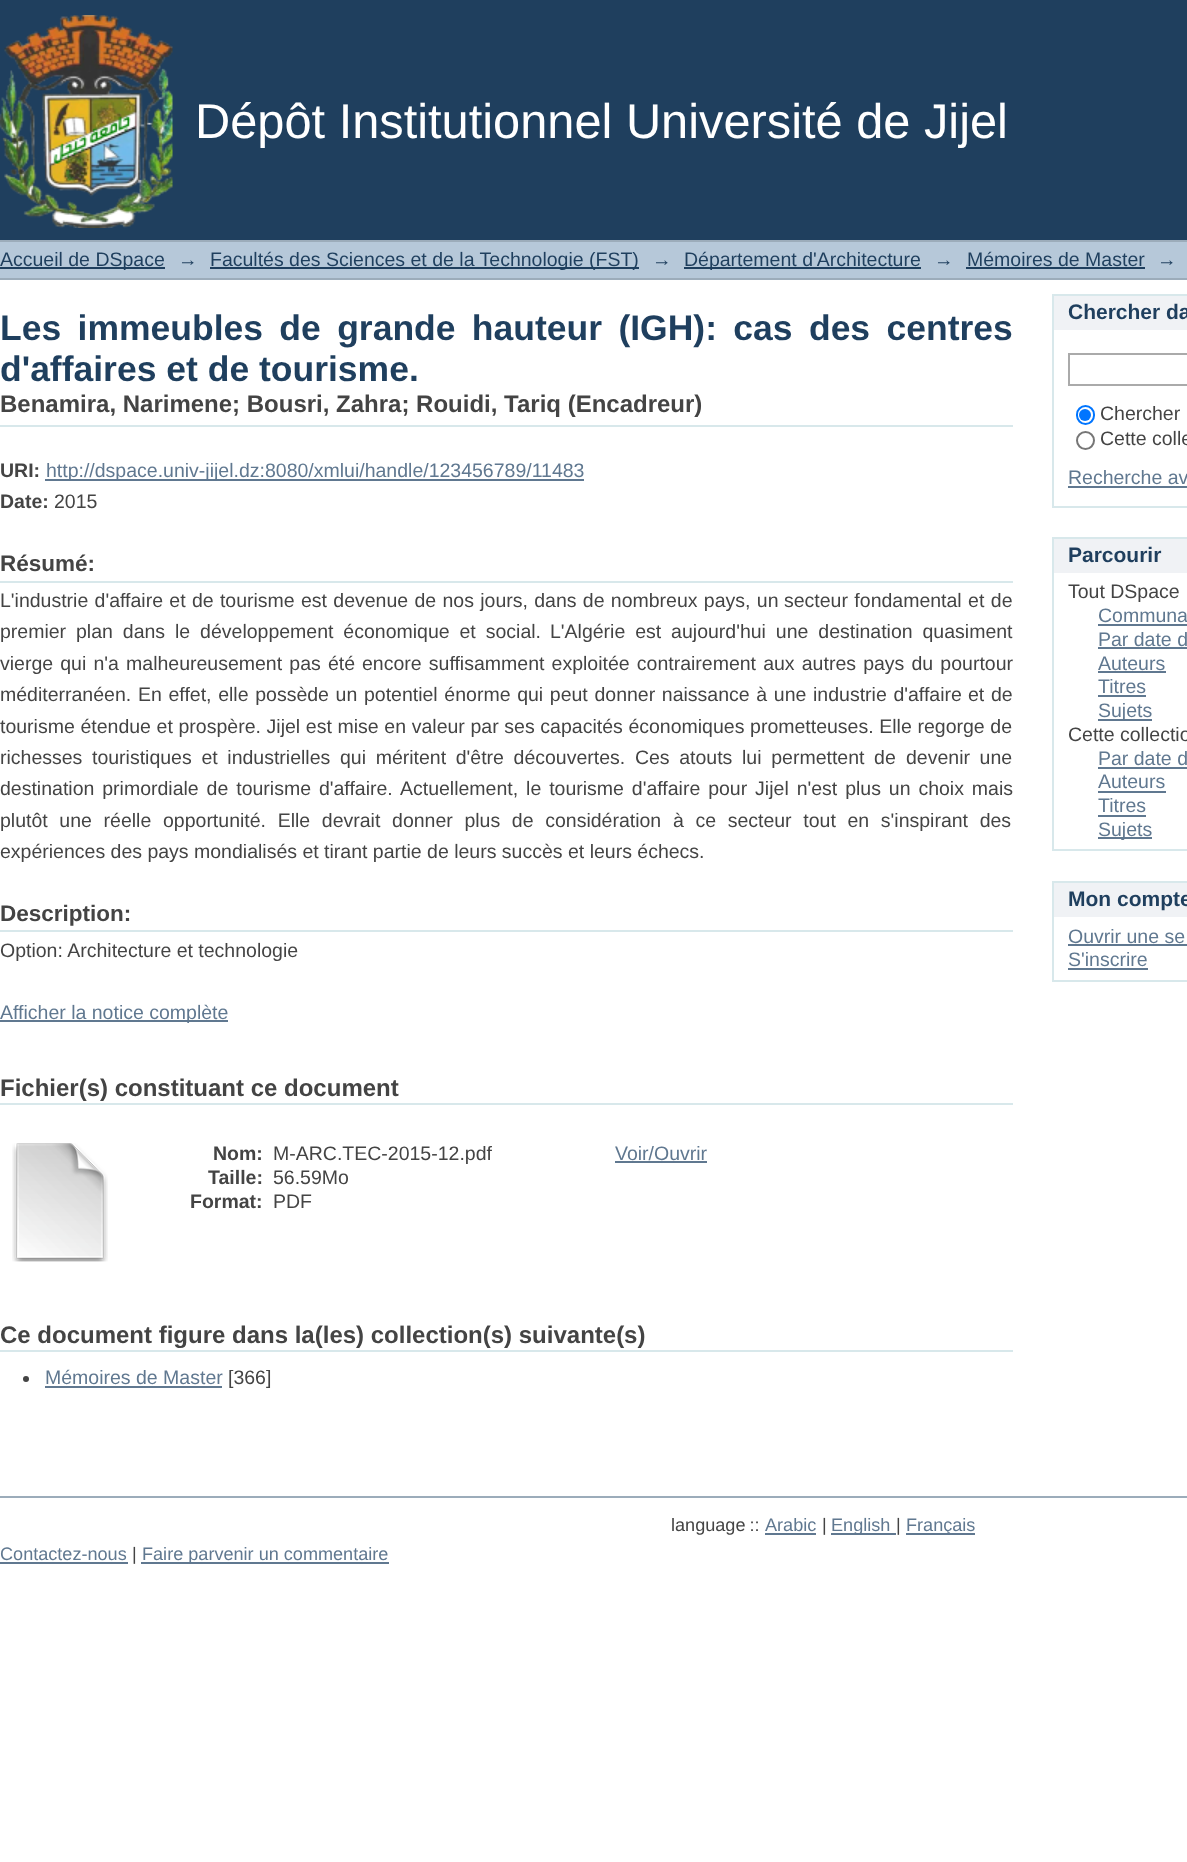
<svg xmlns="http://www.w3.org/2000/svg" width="1187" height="1862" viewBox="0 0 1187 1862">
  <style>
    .t1 { font: 48.75px Liberation Sans; fill: #fff; }
    .t2 { font: 19.5px Liberation Sans; fill: #1f3f5e; }
    .t3 { font: bold 35.5px Liberation Sans; fill: #1f3f5e; }
    .t4 { font: bold 24px Liberation Sans; fill: #444; }
    .t5 { font: bold 19.5px Liberation Sans; fill: #444; }
    .t6 { font: 19.5px Liberation Sans; fill: #607890; }
    .t7 { font: 19.5px Liberation Sans; fill: #444; }
    .t8 { font: bold 22.5px Liberation Sans; fill: #444; }
    .t9 { font: bold 21px Liberation Sans; fill: #1f3f5e; }
    .t10 { font: 18.1px Liberation Sans; fill: #444; }
    .t11 { font: 18.1px Liberation Sans; fill: #607890; }
  </style>
  <rect width="100%" height="100%" fill="#fff"/>
  <rect x="0" y="0" width="1187" height="240" fill="#1f3f5e"/>
  <image x="0" y="15" width="173" height="213" href="images/1.png"/>
  <text x="195" y="138" class="t1">Dépôt Institutionnel Université de Jijel</text>
  <rect x="0" y="242" width="1187" height="36" fill="#b6c8d9"/>
  <rect x="0" y="240" width="1187" height="2" fill="#9cacba"/>
  <rect x="0" y="278" width="1187" height="2" fill="#9cacba"/>
  <rect x="0" y="267" width="165" height="2" fill="#1f3f5e"/>
  <text x="0" y="266" class="t2">Accueil de DSpace</text>
  <text x="178" y="266" class="t2">→</text>
  <rect x="210" y="267" width="429" height="2" fill="#1f3f5e"/>
  <text x="210" y="266" class="t2">Facultés des Sciences et de la Technologie (FST)</text>
  <text x="652" y="266" class="t2">→</text>
  <rect x="684" y="267" width="237" height="2" fill="#1f3f5e"/>
  <text x="684" y="266" class="t2">Département d'Architecture</text>
  <text x="934" y="266" class="t2">→</text>
  <text x="967" y="266" class="t2">Mémoires de Master</text>
  <rect x="966" y="267" width="179" height="2" fill="#1f3f5e"/>
  <text x="1157" y="266" class="t2">→</text>
  <text x="0" y="340" word-spacing="6.5" class="t3">Les immeubles de grande hauteur (IGH): cas des centres</text>
  <text x="0" y="381" class="t3">d'affaires et de tourisme.</text>
  <rect x="0" y="425" width="1013" height="2" fill="#d8e8eb"/>
  <text x="0" y="412" class="t4">Benamira, Narimene; Bousri, Zahra; Rouidi, Tariq (Encadreur)</text>
  <text x="0" y="477" class="t5">URI:</text>
  <rect x="45" y="479" width="539" height="2" fill="#607890"/>
  <text x="46" y="477" class="t6">http://dspace.univ-jijel.dz:8080/xmlui/handle/123456789/11483</text>
  <text x="0" y="508" class="t5">Date:</text>
  <text x="54" y="508" class="t7">2015</text>
  <rect x="0" y="581" width="1013" height="2" fill="#d8e8eb"/>
  <text x="0" y="571" class="t8">Résumé:</text>
  <text x="0" y="607" word-spacing="0.9" class="t7">L'industrie d'affaire et de tourisme est devenue de nos jours, dans de nombreux pays, un</text>
  <text x="784" y="607" word-spacing="1" class="t7">secteur fondamental et de</text>
  <text x="0" y="638" word-spacing="4.5" class="t7">premier plan dans le développement économique et social.</text>
  <text x="550" y="638" word-spacing="4.5" class="t7">L'Algérie est aujourd'hui une destination quasiment</text>
  <text x="0" y="670" word-spacing="1.75" class="t7">vierge qui n'a malheureusement pas été</text>
  <text x="362" y="670" word-spacing="1.75" class="t7">encore suffisamment exploitée contrairement aux autres pays du pourtour</text>
  <text x="0" y="701" class="t7">méditerranéen.</text>
  <text x="138" y="701" word-spacing="1.25" class="t7">En effet, elle possède un potentiel énorme qui peut donner naissance à une industrie d'affaire</text>
  <text x="968" y="701" word-spacing="1.25" class="t7">et de</text>
  <text x="0" y="733" word-spacing="0.25" class="t7">tourisme étendue et prospère. Jijel est mise en valeur par ses capacités économiques prometteuses. Elle regorge de</text>
  <text x="0" y="764" class="t7">richesses</text>
  <text x="92" y="764" word-spacing="4.25" class="t7">touristiques et industrielles qui méritent d'être découvertes. Ces atouts lui permettent de</text>
  <text x="906" y="764" word-spacing="4.25" class="t7">devenir une</text>
  <text x="0" y="795" word-spacing="2.5" class="t7">destination primordiale de tourisme d'affaire.</text>
  <text x="400" y="795" word-spacing="2.5" class="t7">Actuellement, le tourisme d'affaire pour Jijel n'est plus un choix mais</text>
  <text x="0" y="827" word-spacing="6.25" class="t7">plutôt une réelle</text>
  <text x="163" y="827" word-spacing="6.25" class="t7">opportunité. Elle devrait donner plus de considération à ce secteur tout en s'inspirant des</text>
  <text x="0" y="858" class="t7">expériences des pays mondialisés et tirant partie de leurs succès et leurs échecs.</text>
  <rect x="0" y="930" width="1013" height="2" fill="#d8e8eb"/>
  <text x="0" y="921" class="t8">Description:</text>
  <text x="0" y="957" class="t7">Option: Architecture et technologie</text>
  <rect x="0" y="1020" width="228" height="2" fill="#607890"/>
  <text x="0" y="1019" class="t6">Afficher la notice complète</text>
  <rect x="0" y="1103" width="1013" height="2" fill="#d8e8eb"/>
  <text x="0" y="1096" class="t4">Fichier(s) constituant ce document</text>
  <image x="12" y="1143" width="96" height="119" href="images/2.png"/>
  <text x="213" y="1160" class="t5">Nom:</text>
  <text x="273" y="1160" class="t7">M-ARC.TEC-2015-12.pdf</text>
  <text x="208" y="1184" class="t5">Taille:</text>
  <text x="273" y="1184" class="t7">56.59Mo</text>
  <text x="190" y="1208" class="t5">Format:</text>
  <text x="273" y="1208" class="t7">PDF</text>
  <text x="615" y="1160" class="t6">Voir/Ouvrir</text>
  <rect x="615" y="1161" width="92" height="2" fill="#607890"/>
  <rect x="0" y="1350" width="1013" height="2" fill="#d8e8eb"/>
  <text x="0" y="1343" class="t4">Ce document figure dans la(les) collection(s) suivante(s)</text>
  <circle cx="26" cy="1379" r="3" fill="#444"/>
  <text x="45" y="1384" class="t6">Mémoires de Master</text>
  <rect x="45" y="1386" width="177" height="2" fill="#607890"/>
  <text x="228" y="1384" class="t7">[366]</text>
  <rect x="1054" y="296" width="133" height="34" fill="#f0f2f5"/>
  <rect x="1052" y="294" width="135" height="2" fill="#d8e8eb"/>
  <rect x="1052" y="294" width="2" height="36" fill="#d8e8eb"/>
  <text x="1068" y="319" class="t9">Chercher da</text>
  <rect x="1052" y="506" width="135" height="2" fill="#d8e8eb"/>
  <rect x="1052" y="330" width="2" height="177" fill="#d8e8eb"/>
  <rect x="1069" y="354" width="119" height="31" fill="none" stroke="#aaa" stroke-width="2"/>
  <rect x="1077" y="406" width="17" height="18" rx="8.5" fill="none" stroke="#0075ff" stroke-width="2"/>
  <circle cx="1085" cy="415" r="6" fill="#0075ff"/>
  <text x="1100" y="420" class="t7">Chercher</text>
  <circle cx="1085.5" cy="440.5" r="8.5" fill="none" stroke="#767676" stroke-width="2"/>
  <text x="1100" y="445" class="t7">Cette colle</text>
  <text x="1068" y="484" class="t6">Recherche av</text>
  <rect x="1068" y="486" width="119" height="2" fill="#607890"/>
  <rect x="1054" y="539" width="133" height="34" fill="#f0f2f5"/>
  <rect x="1052" y="537" width="135" height="2" fill="#d8e8eb"/>
  <rect x="1052" y="537" width="2" height="36" fill="#d8e8eb"/>
  <text x="1068" y="562" class="t9">Parcourir</text>
  <rect x="1052" y="849" width="135" height="2" fill="#d8e8eb"/>
  <rect x="1052" y="573" width="2" height="278" fill="#d8e8eb"/>
  <text x="1068" y="598" class="t7">Tout DSpace</text>
  <text x="1098" y="622" class="t6">Communa</text>
  <rect x="1098" y="624" width="89" height="2" fill="#607890"/>
  <text x="1098" y="646" class="t6">Par date d</text>
  <rect x="1098" y="647" width="89" height="2" fill="#607890"/>
  <text x="1098" y="670" class="t6">Auteurs</text>
  <rect x="1098" y="671" width="68" height="2" fill="#607890"/>
  <text x="1098" y="693" class="t6">Titres</text>
  <rect x="1098" y="695" width="48" height="2" fill="#607890"/>
  <rect x="1098" y="719" width="54" height="2" fill="#607890"/>
  <text x="1098" y="717" class="t6">Sujets</text>
  <text x="1068" y="741" class="t7">Cette collectio</text>
  <text x="1098" y="765" class="t6">Par date d</text>
  <rect x="1098" y="767" width="89" height="2" fill="#607890"/>
  <text x="1098" y="788" class="t6">Auteurs</text>
  <rect x="1098" y="791" width="68" height="2" fill="#607890"/>
  <text x="1098" y="812" class="t6">Titres</text>
  <rect x="1098" y="815" width="48" height="2" fill="#607890"/>
  <rect x="1098" y="837" width="54" height="2" fill="#607890"/>
  <text x="1098" y="836" class="t6">Sujets</text>
  <rect x="1054" y="883" width="133" height="34" fill="#f0f2f5"/>
  <rect x="1052" y="881" width="135" height="2" fill="#d8e8eb"/>
  <rect x="1052" y="881" width="2" height="36" fill="#d8e8eb"/>
  <text x="1068" y="906" class="t9">Mon compte</text>
  <rect x="1052" y="980" width="135" height="2" fill="#d8e8eb"/>
  <rect x="1052" y="917" width="2" height="64" fill="#d8e8eb"/>
  <text x="1068" y="943" class="t6">Ouvrir une se</text>
  <rect x="1068" y="944" width="119" height="2" fill="#607890"/>
  <text x="1068" y="966" class="t6">S'inscrire</text>
  <rect x="1068" y="968" width="80" height="2" fill="#607890"/>
  <rect x="0" y="1496" width="1187" height="2" fill="#9cacba"/>
  <text x="671" y="1531" word-spacing="-1" class="t10">language ::</text>
  <text x="765" y="1531" class="t11">Arabic</text>
  <rect x="765" y="1533" width="51" height="2" fill="#607890"/>
  <text x="822" y="1531" class="t10">|</text>
  <rect x="831" y="1533" width="65" height="2" fill="#607890"/>
  <text x="831" y="1531" class="t11">English</text>
  <text x="896" y="1531" class="t10">|</text>
  <rect x="906" y="1533" width="69" height="2" fill="#607890"/>
  <text x="906" y="1531" class="t11">Français</text>
  <text x="0" y="1560" class="t11">Contactez-nous</text>
  <rect x="0" y="1562" width="128" height="2" fill="#607890"/>
  <text x="132" y="1560" class="t10">|</text>
  <rect x="141" y="1562" width="248" height="2" fill="#607890"/>
  <text x="142" y="1560" class="t11">Faire parvenir un commentaire</text>
</svg>
